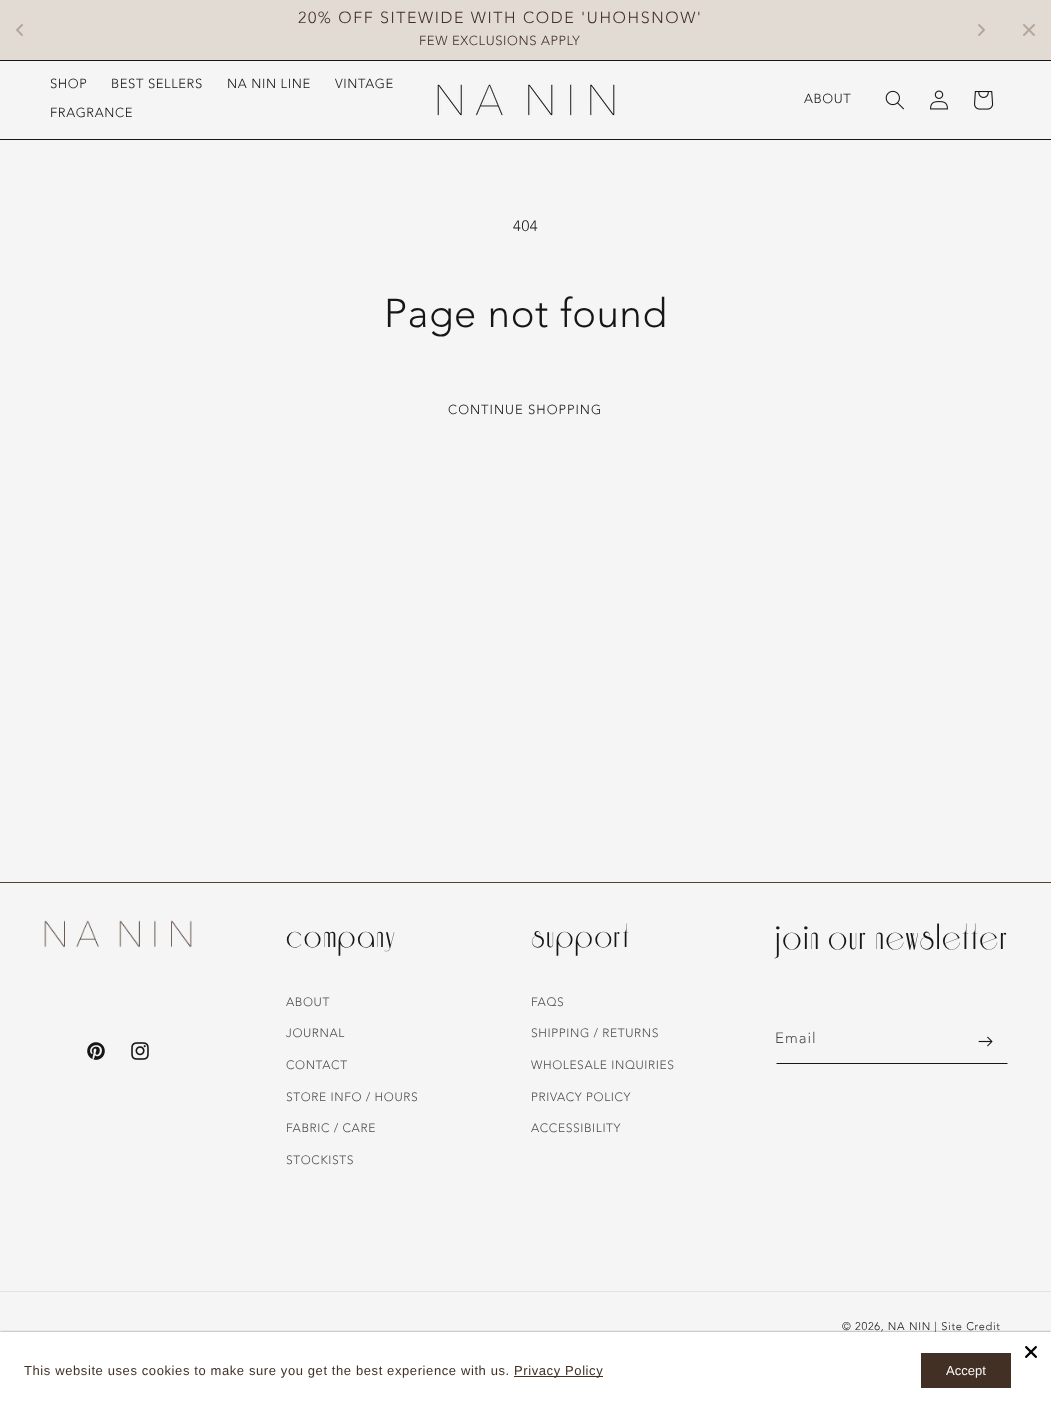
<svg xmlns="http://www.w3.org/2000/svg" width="1051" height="1409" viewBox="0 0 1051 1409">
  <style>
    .t1 { font: 300 16px Avenir; letter-spacing: 1.6px; fill: #423025; }
    .t2 { font: 300 13px Avenir; letter-spacing: 0.6px; fill: #423025; }
    .t3 { font: 300 13px Avenir; letter-spacing: 0.6px; fill: #161616; }
    .t4 { font: 300 15px Avenir; letter-spacing: 0.6px; fill: #161616; }
    .t5 { font: 300 40px Avenir; letter-spacing: 0.6px; fill: #161616; }
    .t6 { font: 300 13px Avenir; letter-spacing: 1px; fill: #161616; }
    .t7 { font: 34.5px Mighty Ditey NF; letter-spacing: 1.75px; fill: #161616; }
    .t8 { font: 300 12px Avenir; letter-spacing: 0.6px; fill: #4e4e4e; }
    .t9 { font: 37.5px Mighty Ditey NF; letter-spacing: 1.9px; fill: #161616; }
    .t10 { font: 300 15px Avenir; letter-spacing: 1px; fill: #4e4e4e; }
    .t11 { font: 300 11px Avenir; letter-spacing: 0.7px; fill: #161616; }
    .t12 { font: 13px Liberation Sans; letter-spacing: 0.6px; fill: #423025; }
    .t13 { font: 13px Liberation Sans; fill: #f8f8f8; }
  </style>
  <rect width="100%" height="100%" fill="#f5f5f5"/>
  <rect x="0" y="0" width="1051" height="60" fill="#e1dbd4"/>
  <rect x="0" y="60" width="1051" height="1" fill="#161616"/>
  <text x="298" y="23" class="t1">20% OFF SITEWIDE WITH CODE 'UHOHSNOW'</text>
  <text x="419" y="45" class="t2">FEW EXCLUSIONS APPLY</text>
  <image x="16" y="24" width="7" height="12" href="images/1.png"/>
  <image x="978" y="24" width="7" height="12" href="images/2.png"/>
  <image x="1023" y="24" width="12" height="12" href="images/3.png"/>
  <rect x="0" y="139" width="1051" height="1" fill="#161616"/>
  <text x="50" y="88" class="t3">SHOP</text>
  <text x="111" y="88" class="t3">BEST SELLERS</text>
  <text x="227" y="88" class="t3">NA NIN LINE</text>
  <text x="335" y="88" class="t3">VINTAGE</text>
  <text x="804" y="103" class="t3">ABOUT</text>
  <text x="50" y="117" class="t3">FRAGRANCE</text>
  <image x="437" y="84" width="178" height="32" href="images/4.png"/>
  <image x="885" y="90" width="19" height="20" href="images/5.png"/>
  <image x="930" y="90" width="18" height="20" href="images/6.png"/>
  <image x="974" y="91" width="20" height="19" href="images/7.png"/>
  <text x="513" y="231" class="t4">404</text>
  <text x="384" y="327" class="t5">Page not found</text>
  <text x="448" y="414" class="t6">CONTINUE SHOPPING</text>
  <rect x="0" y="882" width="1051" height="1" fill="#5a3e2e"/>
  <image x="44" y="920" width="148" height="28" href="images/8.png"/>
  <text x="286" y="947" class="t7">company</text>
  <text x="286" y="1006" class="t8">ABOUT</text>
  <text x="286" y="1037" class="t8">JOURNAL</text>
  <text x="286" y="1069" class="t8">CONTACT</text>
  <text x="286" y="1101" class="t8">STORE INFO / HOURS</text>
  <text x="286" y="1132" class="t8">FABRIC / CARE</text>
  <text x="286" y="1164" class="t8">STOCKISTS</text>
  <text x="531" y="947" class="t7">support</text>
  <text x="531" y="1006" class="t8">FAQS</text>
  <text x="531" y="1037" class="t8">SHIPPING / RETURNS</text>
  <text x="531" y="1069" class="t8">WHOLESALE INQUIRIES</text>
  <text x="531" y="1101" class="t8">PRIVACY POLICY</text>
  <text x="531" y="1132" class="t8">ACCESSIBILITY</text>
  <text x="775" y="949" class="t9">join our newsletter</text>
  <text x="775" y="1043" class="t10">Email</text>
  <image x="978" y="1036" width="15" height="11" href="images/9.png"/>
  <path d="M1008 1064H776L777 1063H1007Z" fill="#161616"/>
  <image x="87" y="1042" width="18" height="18" href="images/10.png"/>
  <image x="131" y="1042" width="18" height="18" href="images/11.png"/>
  <rect x="0" y="1291" width="1051" height="1" fill="#e3e3e3"/>
  <text x="842" y="1330" class="t11">© 2026, NA NIN | Site Credit</text>
  <rect x="0" y="1332" width="1051" height="77" fill="#00000080" filter="blur(1px)"/>
  <rect x="0" y="1332" width="1051" height="77" fill="#fff"/>
  <image x="1025" y="1346" width="12" height="12" href="images/12.png"/>
  <text x="24" y="1375" class="t12">This website uses cookies to make sure you get the best experience with us.</text>
  <rect x="514" y="1376" width="89" height="1" fill="#423025"/>
  <text x="514" y="1375" class="t12">Privacy Policy</text>
  <rect x="921" y="1353" width="90" height="35" fill="#423025"/>
  <text x="946" y="1375" class="t13">Accept</text>
</svg>
